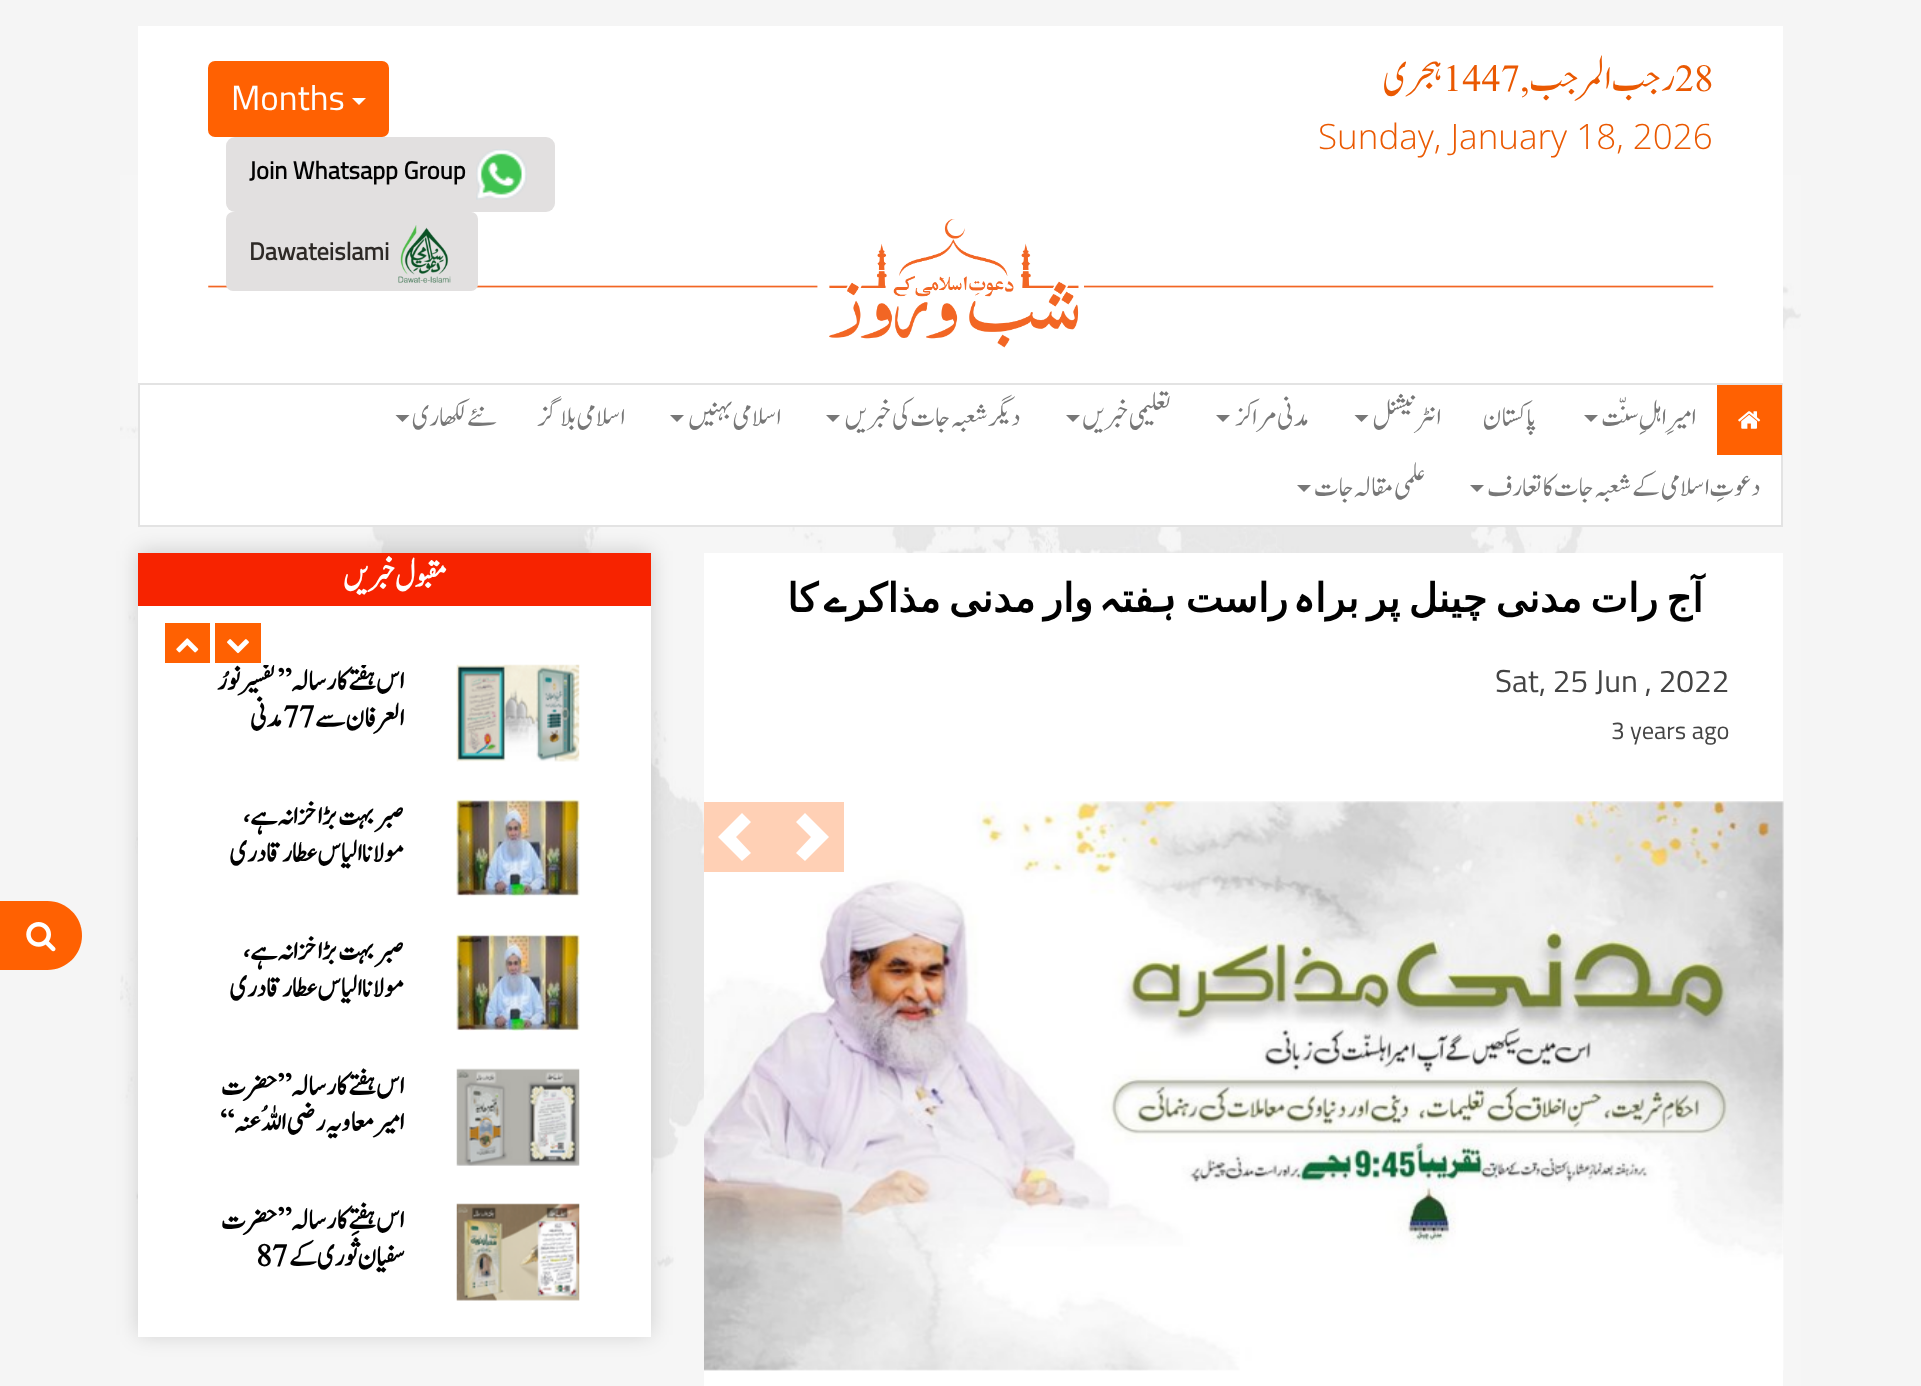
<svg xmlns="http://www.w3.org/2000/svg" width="1921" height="1386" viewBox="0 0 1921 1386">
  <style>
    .t1 { font: 38.5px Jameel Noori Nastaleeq; fill: #ea5902; }
    .t2 { font: 44px Jameel Noori Nastaleeq; direction: rtl; fill: #ea5902; }
    .t3 { font: 300 35px Open Sans; fill: #ea5902; }
    .t4 { font: 35px Titillium Web; fill: #fff; }
    .t5 { font: bold 24.5px Titillium Web; fill: #010101; }
    .t6 { font: bold 24.5px Titillium Web; fill: #2d2926; }
    .t7 { font: 31.5px Jameel Noori Nastaleeq; direction: rtl; fill: #777; }
    .t8 { font: bold 39.75px DejaVu Sans; direction: rtl; fill: #010101; }
    .t9 { font: bold 39.75px Cascadia Code; direction: rtl; fill: #010101; }
    .t10 { font: 31.5px Titillium Web; fill: #444; }
    .t11 { font: 24.5px Titillium Web; fill: #444; }
    .t12 { font: bold 35px Jameel Noori Nastaleeq; direction: rtl; fill: #fff; }
    .t13 { font: bold 31.5px Jameel Noori Nastaleeq; direction: rtl; fill: #010101; }
    .t14 { font: bold 31.5px Jameel Noori Nastaleeq; fill: #010101; }
  </style>
  <defs>
    <clipPath id="clip1"><rect x="210" y="665" width="194" height="75"/></clipPath>
  </defs>
  <rect width="100%" height="100%" fill="#f5f5f5"/>
  <image x="120" y="175" width="1681" height="1211" href="images/1.png"/>
  <rect x="138" y="26" width="1645" height="357" fill="#fff"/>
  <text x="1675" y="91" class="t1">28</text>
  <text x="1675" y="91" class="t2">رجب المرجب</text>
  <text x="1443" y="91" class="t1">1447,</text>
  <text x="1443" y="91" class="t2">ہجری</text>
  <text x="1318" y="149" class="t3">Sunday, January 18, 2026</text>
  <rect x="209" y="62" width="179" height="74" rx="6" fill="#ff6102" stroke="#ff6102" stroke-width="2"/>
  <path d="M352 98H366L359 105Z" fill="#fff"/>
  <text x="231" y="110" class="t4">Months</text>
  <rect x="226" y="137" width="329" height="75" rx="9" fill="#e2e0e0"/>
  <image x="476" y="149" width="51" height="51" href="images/2.png"/>
  <text x="249" y="179" class="t5">Join Whatsapp Group</text>
  <image x="208" y="219" width="1506" height="129" href="images/4.png"/>
  <rect x="227" y="213" width="250" height="77" rx="6" fill="#e2e0e0" stroke="#e2e0e0" stroke-width="2"/>
  <image x="398" y="225" width="53" height="58" href="images/3.png"/>
  <text x="249" y="260" class="t6">Dawateislami</text>
  <rect x="139" y="384" width="1643" height="142" fill="#fff" stroke="#e3e3e3" stroke-width="2"/>
  <rect x="1717" y="385" width="65" height="70" fill="#ff6102"/>
  <image x="1738" y="411" width="23" height="18" href="images/5.png"/>
  <text x="1696" y="426" class="t7">امیرِ اہلِ سنّت</text>
  <path d="M1584 415H1598L1591 422Z" fill="#777"/>
  <text x="1537" y="426" class="t7">پاکستان</text>
  <text x="1441" y="426" class="t7">انٹرنیشنل</text>
  <path d="M1354.5 415H1368.5L1361.5 422Z" fill="#777"/>
  <text x="1310" y="426" class="t7">مدنی مراکز</text>
  <path d="M1216 415H1230L1223 422Z" fill="#777"/>
  <text x="1171" y="426" class="t7">تعلیمی خبریں</text>
  <path d="M1066 415H1080L1073 422Z" fill="#777"/>
  <text x="1020" y="426" class="t7">دیگر شعبہ جات کی خبریں</text>
  <path d="M826 415H840L833 422Z" fill="#777"/>
  <text x="781" y="426" class="t7">اسلامی بہنیں</text>
  <path d="M670 415H684L677 422Z" fill="#777"/>
  <text x="625" y="426" class="t7">اسلامی بلاگز</text>
  <text x="497" y="426" class="t7">نئے لکھاری</text>
  <path d="M395.5 415H409.5L402.5 422Z" fill="#777"/>
  <text x="1760" y="496" class="t7">دعوتِ اسلامی کے شعبہ جات کا تعارف</text>
  <path d="M1470 485H1484L1477 492Z" fill="#777"/>
  <text x="1425" y="496" class="t7">علمی مقالہ جات</text>
  <path d="M1297 485H1311L1304 492Z" fill="#777"/>
  <rect x="704" y="553" width="1079" height="833" fill="#fff"/>
  <text x="1703" y="612" word-spacing="-4.25" class="t8">آج رات مدنی چینل پر برا</text>
  <text x="1316" y="612" class="t9">ہ</text>
  <text x="1288" y="612" class="t8">راست</text>
  <text x="1122" y="612" class="t9">‍ہ</text>
  <text x="1154" y="612" class="t8">‍فت‍</text>
  <text x="1177" y="612" class="t9">ہ‍</text>
  <text x="847" y="612" class="t9">ے</text>
  <text x="1093" y="612" word-spacing="-4.25" class="t8">وار مدنی مذاکر</text>
  <text x="818" y="612" class="t8">کا</text>
  <text x="1495" y="692" class="t10">Sat, 25 Jun , 2022</text>
  <text x="1611" y="739" class="t11">3 years ago</text>
  <image x="704" y="801" width="1080" height="570" href="images/6.png"/>
  <rect x="704" y="802" width="140" height="70" fill="#ffd0b5"/>
  <path d="M751 822L736 837L751 853L742 861L718 837L742 813Z" fill="#fff"/>
  <path d="M829 837L805 861L796 853L811 837L796 822L805 813Z" fill="#fff"/>
  <rect x="138" y="551" width="513" height="784" fill="#00000029" filter="blur(10.5px)"/>
  <rect x="138" y="606" width="513" height="731" fill="#fff"/>
  <rect x="138" y="553" width="513" height="53" fill="#f72300"/>
  <text x="447" y="587" class="t12">مقبول خبریں</text>
  <rect x="215" y="623" width="46" height="40" fill="#ff6102"/>
  <image x="227" y="639" width="22" height="15" href="images/7.png"/>
  <rect x="165" y="623" width="45" height="40" fill="#ff6102"/>
  <image x="176" y="638" width="23" height="15" href="images/8.png"/>
  <image x="456" y="664" width="124" height="98" href="images/9.png"/>
  <g clip-path="url(#clip1)">
    <text x="404" y="690" class="t13">اس ہفتے کا رسالہ ”تفسیر نورُ</text>
  </g>
  <text x="404" y="727" class="t13">العرفان سے</text>
  <text x="283" y="727" class="t14">77</text>
  <text x="283" y="727" class="t13">مدنی</text>
  <image x="456" y="799" width="124" height="98" href="images/10.png"/>
  <text x="404" y="825" class="t13">صبر بہت بڑا خزانہ ہے ،</text>
  <text x="404" y="862" class="t13">مولانا الیاس عطار</text>
  <text x="281" y="862" class="t13">قادری</text>
  <image x="456" y="933" width="124" height="98" href="images/11.png"/>
  <text x="404" y="960" class="t13">صبر بہت بڑا خزانہ ہے ،</text>
  <text x="404" y="997" class="t13">مولانا الیاس عطار</text>
  <text x="281" y="997" class="t13">قادری</text>
  <image x="456" y="1068" width="124" height="98" href="images/12.png"/>
  <text x="404" y="1095" class="t13">اس ہفتے کا رسالہ ”حضرت</text>
  <text x="404" y="1131" class="t13">امیر معاویہ رضی اللہُ عنہ“</text>
  <image x="456" y="1203" width="124" height="98" href="images/13.png"/>
  <text x="404" y="1229" class="t13">اس ہفتے کا رسالہ ” حضرت</text>
  <text x="404" y="1266" class="t13">سفیان ثَوری کے</text>
  <text x="256" y="1266" class="t14">87</text>
  <path d="M0 901H47.5C66.5 901 82 916.5 82 935.5C82 954.5 66.5 970 47.5 970H0Z" fill="#ff6102"/>
  <image x="26" y="922" width="30" height="30" href="images/14.png"/>
</svg>
